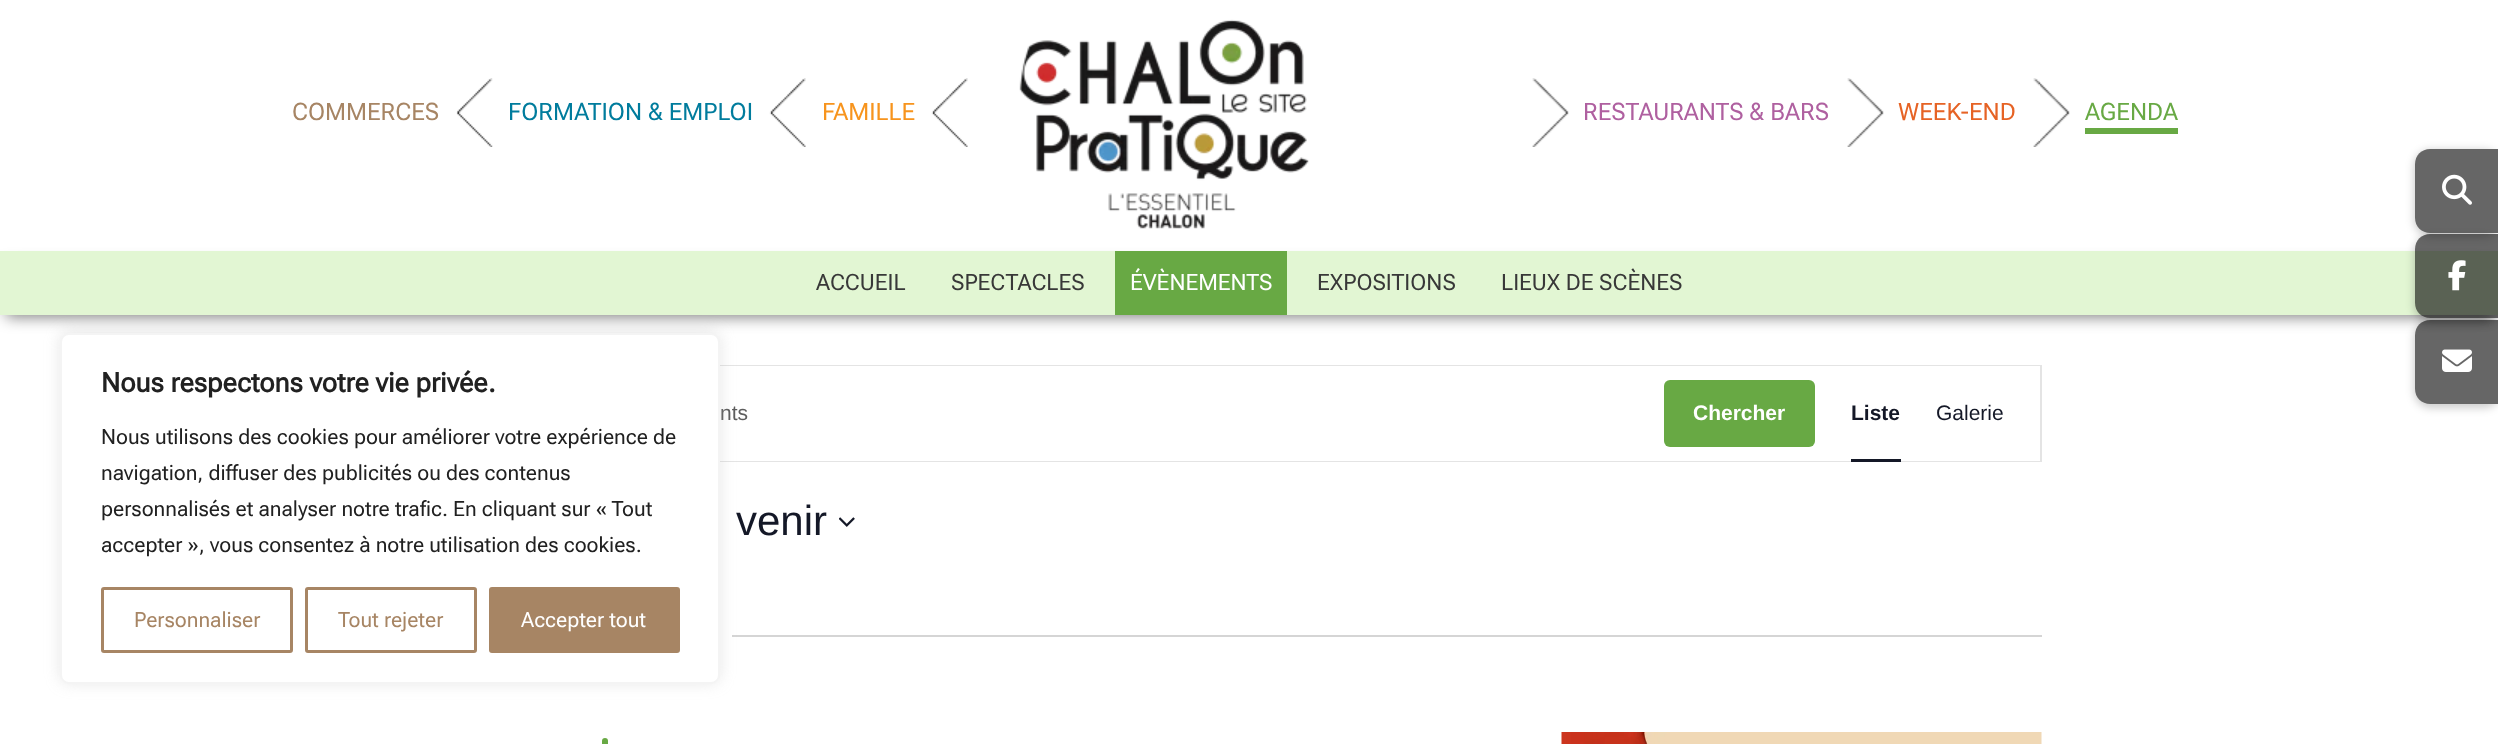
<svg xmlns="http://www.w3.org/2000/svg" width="2498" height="744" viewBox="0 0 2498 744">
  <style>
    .t1 { font: 24px Roboto Flex; fill: #a78564; }
    .t2 { font: 24px Roboto Flex; fill: #007c9d; }
    .t3 { font: 24px Roboto Flex; fill: #f7941d; }
    .t4 { font: 24px Roboto Flex; fill: #af60a0; }
    .t5 { font: 24px Roboto Flex; fill: #e66325; }
    .t6 { font: 24px Roboto Flex; fill: #68a944; }
    .t7 { font: 22.5px Roboto Flex; fill: #383838; }
    .t8 { font: 22.5px Roboto Flex; fill: #fff; }
    .t9 { font: 21px Liberation Sans; fill: #5d5d5d; }
    .t10 { font: bold 21px Liberation Sans; fill: #fff; }
    .t11 { font: bold 21px Liberation Sans; fill: #141827; }
    .t12 { font: 21px Liberation Sans; fill: #141827; }
    .t13 { font: 42px Liberation Sans; fill: #141827; }
    .t14 { font: bold 27px Roboto Flex; fill: #212121; }
    .t15 { font: 21px Roboto Flex; fill: #212121; }
    .t16 { font: 21px Roboto Flex; fill: #a78564; }
    .t17 { font: 21px Roboto Flex; fill: #fff; }
  </style>
  <defs>
    <clipPath id="clip1"><path d="M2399 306H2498V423H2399ZM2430 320H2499V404H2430C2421.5 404 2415 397.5 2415 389V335C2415 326.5 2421.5 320 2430 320Z" clip-rule="evenodd"/></clipPath>
    <clipPath id="clip2"><path d="M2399 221H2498V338H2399ZM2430 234H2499V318H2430C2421.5 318 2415 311.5 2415 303V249C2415 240.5 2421.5 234 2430 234Z" clip-rule="evenodd"/></clipPath>
    <clipPath id="clip3"><path d="M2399 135H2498V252H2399ZM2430 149H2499V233H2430C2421.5 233 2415 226.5 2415 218V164C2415 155.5 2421.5 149 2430 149Z" clip-rule="evenodd"/></clipPath>
  </defs>
  <rect width="100%" height="100%" fill="#fff"/>
  <text x="292" y="120" class="t1">COMMERCES</text>
  <image x="456" y="78" width="37" height="69" href="images/1.png"/>
  <text x="508" y="120" class="t2">FORMATION &amp; EMPLOI</text>
  <image x="769" y="78" width="37" height="69" href="images/2.png"/>
  <text x="822" y="120" class="t3">FAMILLE</text>
  <image x="931" y="78" width="37" height="69" href="images/2.png"/>
  <image x="1019" y="19" width="290" height="210" href="images/3.png"/>
  <image x="1532" y="78" width="37" height="69" href="images/4.png"/>
  <text x="1583" y="120" class="t4">RESTAURANTS &amp; BARS</text>
  <image x="1847" y="78" width="37" height="69" href="images/4.png"/>
  <text x="1898" y="120" class="t5">WEEK-END</text>
  <image x="2033" y="78" width="37" height="69" href="images/5.png"/>
  <text x="2085" y="120" class="t6">AGENDA</text>
  <rect x="2085" y="128" width="93" height="6" fill="#68a944"/>
  <rect x="6" y="264" width="2487" height="53" fill="#00000080" filter="blur(7.5px)"/>
  <rect x="0" y="251" width="2498" height="64" fill="#e2f6d3"/>
  <text x="816" y="290" class="t7">ACCUEIL</text>
  <text x="951" y="290" class="t7">SPECTACLES</text>
  <rect x="1115" y="251" width="172" height="64" fill="#68a944"/>
  <text x="1130" y="290" class="t8">ÉVÈNEMENTS</text>
  <text x="1317" y="290" class="t7">EXPOSITIONS</text>
  <text x="1501" y="290" class="t7">LIEUX DE SCÈNES</text>
  <g clip-path="url(#clip1)">
    <rect x="2414" y="321" width="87" height="87" rx="17" fill="#00000033" filter="blur(4.5px)"/>
  </g>
  <path d="M2430 320H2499V404H2430C2421.5 404 2415 397.5 2415 389V335C2415 326.5 2421.5 320 2430 320Z" fill="#00000099"/>
  <g clip-path="url(#clip2)">
    <rect x="2414" y="236" width="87" height="87" rx="17" fill="#00000033" filter="blur(4.5px)"/>
  </g>
  <path d="M2430 234H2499V318H2430C2421.5 318 2415 311.5 2415 303V249C2415 240.5 2421.5 234 2430 234Z" fill="#00000099"/>
  <g clip-path="url(#clip3)">
    <rect x="2414" y="150" width="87" height="87" rx="17" fill="#00000033" filter="blur(4.5px)"/>
  </g>
  <path d="M2430 149H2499V233H2430C2421.5 233 2415 226.5 2415 218V164C2415 155.5 2421.5 149 2430 149Z" fill="#00000099"/>
  <image x="2442" y="174" width="30" height="31" href="images/6.png"/>
  <image x="2448" y="260" width="18" height="31" href="images/7.png"/>
  <image x="2442" y="349" width="30" height="23" href="images/8.png"/>
  <rect x="459" y="366" width="1582" height="95" fill="none" stroke="#e4e4e4" stroke-width="2"/>
  <rect x="720" y="366" width="1320" height="95" fill="#fff"/>
  <text x="720" y="420" class="t9">nts</text>
  <rect x="1664" y="380" width="151" height="67" rx="6" fill="#68a944"/>
  <text x="1693" y="420" class="t10">Chercher</text>
  <text x="1851" y="420" class="t11">Liste</text>
  <rect x="1851" y="459" width="50" height="3" fill="#141827"/>
  <text x="1936" y="420" class="t12">Galerie</text>
  <text x="736" y="535" class="t13">venir</text>
  <image x="839" y="517" width="16" height="10" href="images/9.png"/>
  <rect x="732" y="635" width="1310" height="2" fill="#d5d5d5"/>
  <rect x="602" y="738" width="6" height="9" rx="3" fill="#68a944"/>
  <image x="1561" y="732" width="481" height="12" href="images/10.png"/>
  <rect x="60" y="332" width="660" height="351" rx="9" fill="#acabab4d" filter="blur(7.5px)"/>
  <rect x="61" y="334" width="658" height="349" rx="8" fill="#fff" stroke="#f4f4f4" stroke-width="2"/>
  <text x="101" y="392" class="t14">Nous respectons votre vie privée.</text>
  <text x="101" y="444" class="t15">Nous utilisons des cookies pour améliorer votre expérience de</text>
  <text x="101" y="480" class="t15">navigation, diffuser des publicités ou des contenus</text>
  <text x="101" y="516" class="t15">personnalisés et analyser notre trafic. En cliquant sur « Tout</text>
  <text x="101" y="552" class="t15">accepter », vous consentez à notre utilisation des cookies.</text>
  <rect x="102.5" y="588.5" width="189" height="63" rx="1.5" fill="none" stroke="#a78564" stroke-width="3"/>
  <text x="134" y="627" class="t16">Personnaliser</text>
  <rect x="306.5" y="588.5" width="169" height="63" rx="1.5" fill="none" stroke="#a78564" stroke-width="3"/>
  <text x="338" y="627" class="t16">Tout rejeter</text>
  <rect x="490.5" y="588.5" width="188" height="63" rx="1.5" fill="#a78564" stroke="#a78564" stroke-width="3"/>
  <text x="521" y="627" class="t17">Accepter tout</text>
</svg>
